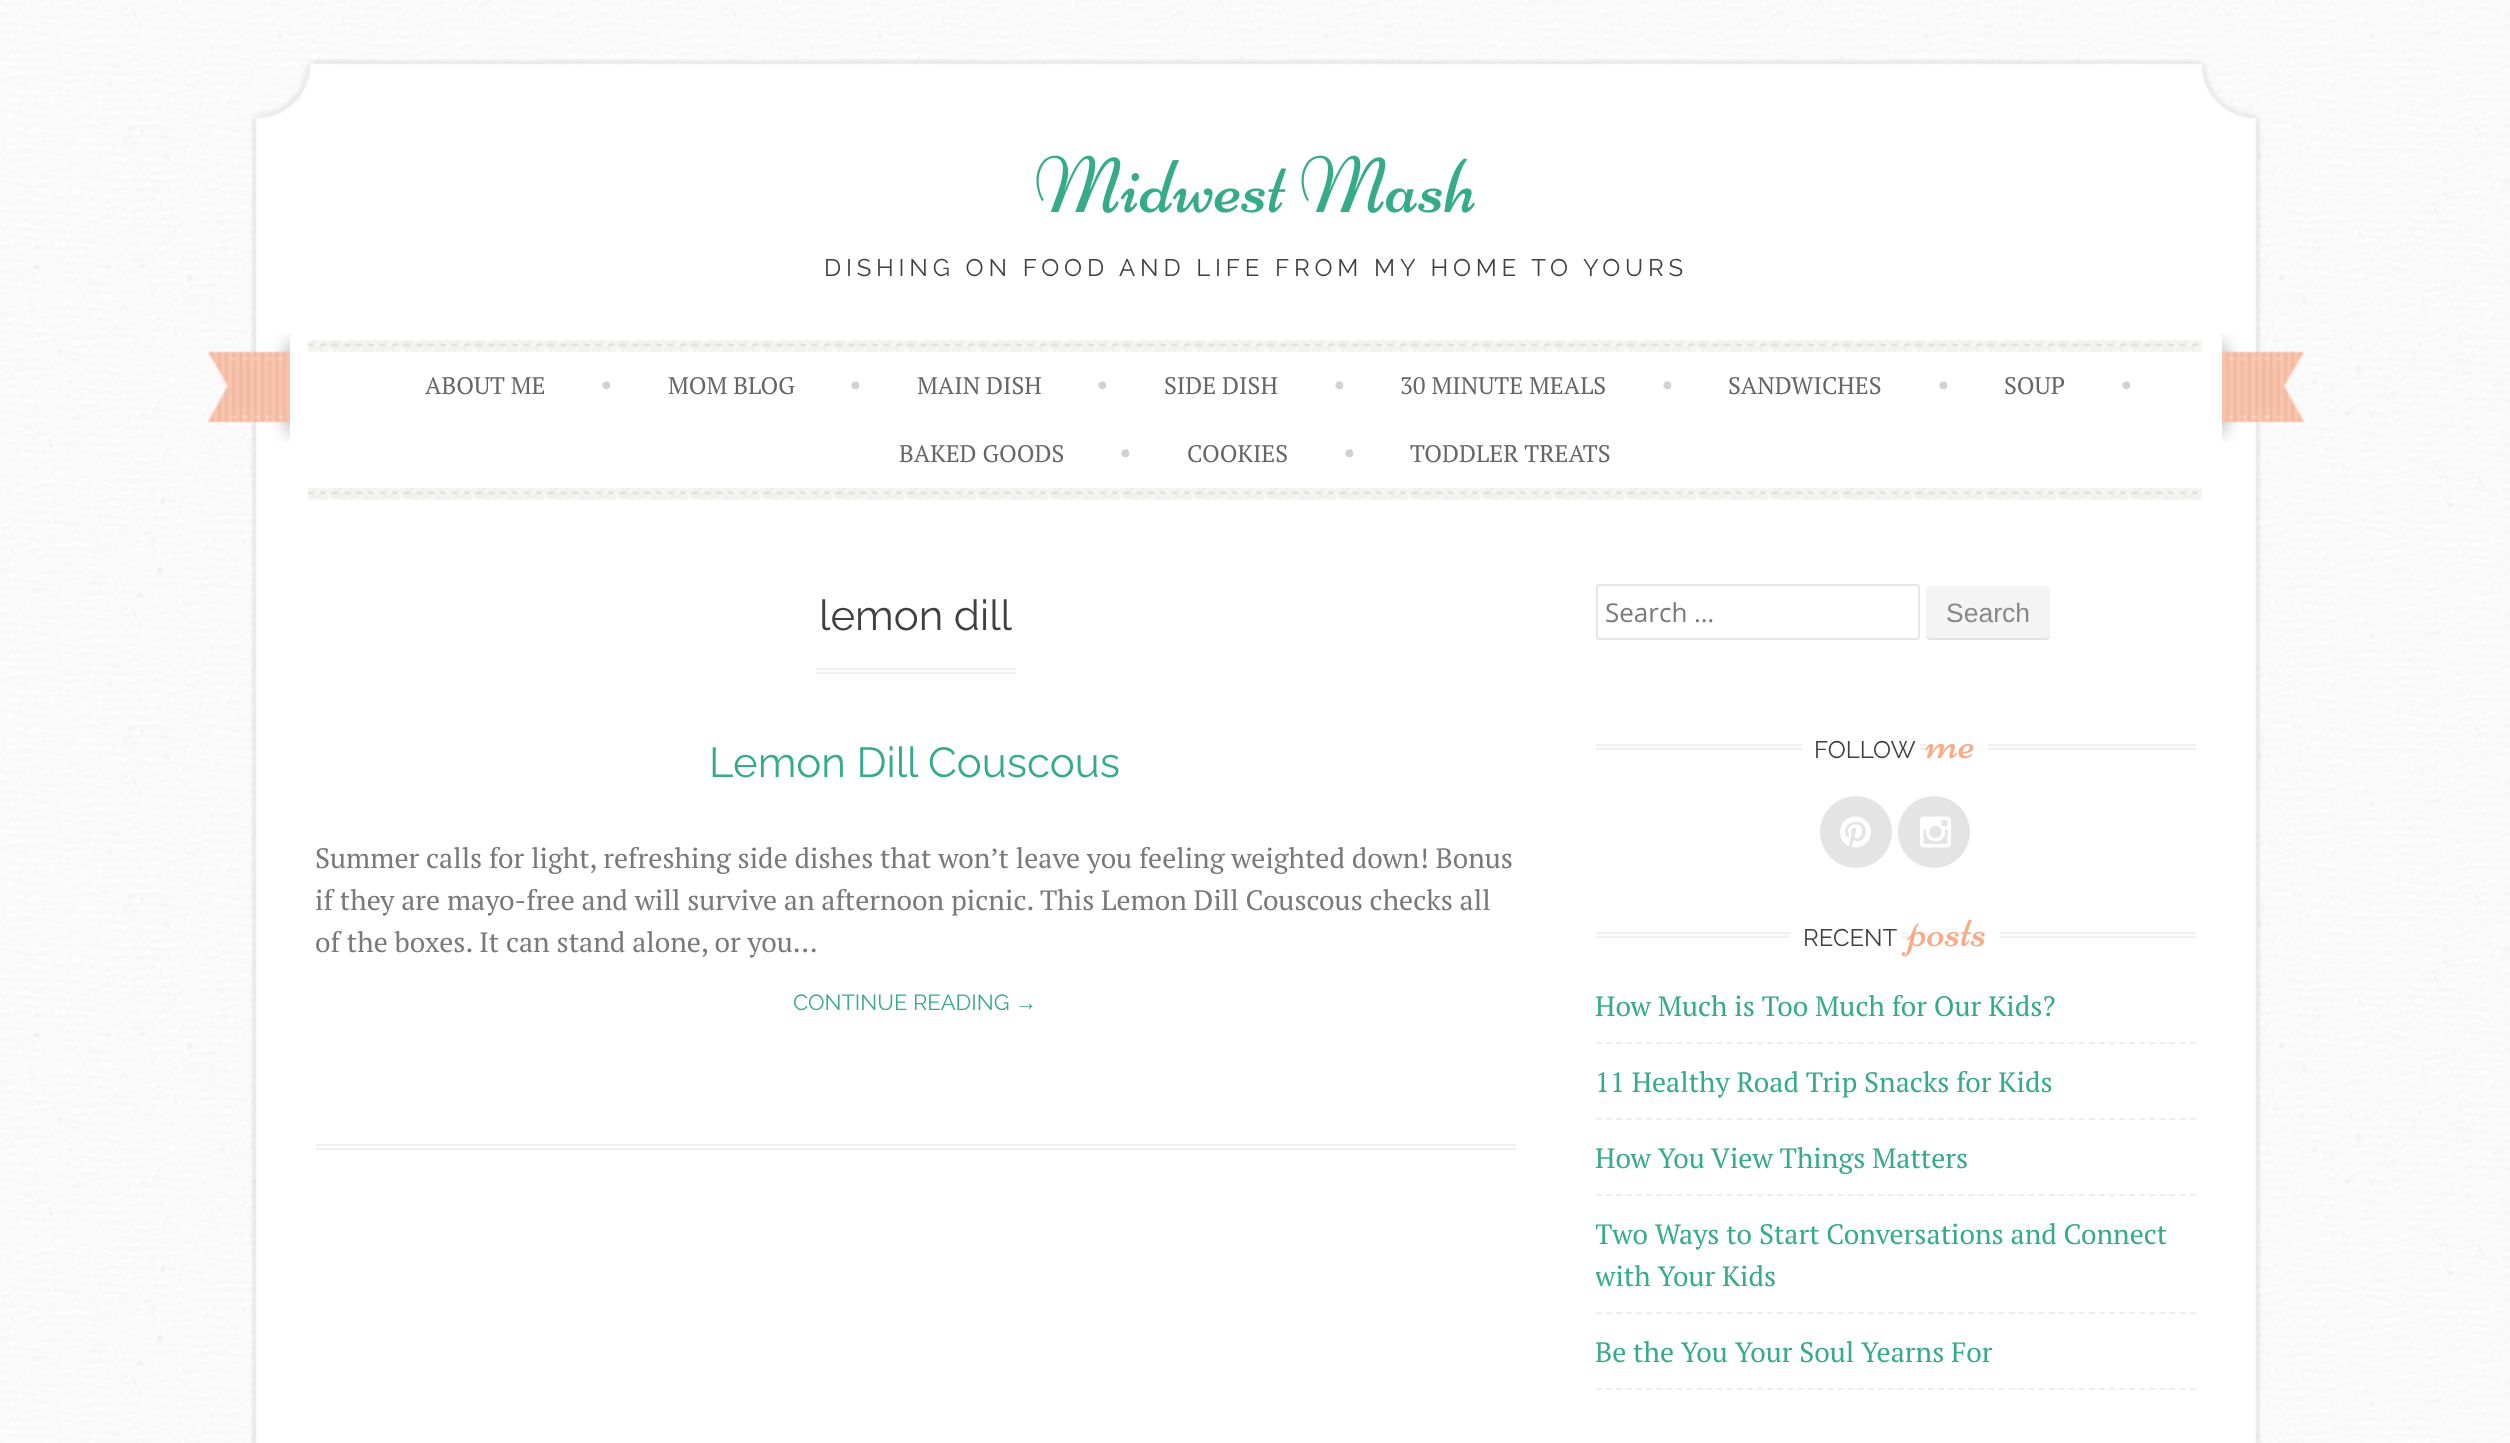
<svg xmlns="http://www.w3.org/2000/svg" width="2510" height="1443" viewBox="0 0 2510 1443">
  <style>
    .t1 { font: 24px Raleway; letter-spacing: 4.8px; fill: #404040; }
    .t2 { font: 24px PT Serif; fill: #666; }
    .t3 { font: 28px PT Serif; fill: #d2d2d2; }
    .t4 { font: 42px Raleway; fill: #404040; }
    .t5 { font: 42px Raleway; fill: #36ab8a; }
    .t6 { font: 28px PT Serif; fill: #797979; }
    .t7 { font: 22px Raleway; fill: #36ab8a; }
    .t8 { font: 22px Liberation Sans; fill: #36ab8a; }
    .t9 { font: 26px Open Sans; fill: #797979; }
    .t10 { font: 26.5px Liberation Sans; fill: #888; }
    .t11 { font: 24px Raleway; fill: #404040; }
    .t12 { font: 28px PT Serif; fill: #36ab8a; }
  </style>
  <defs>
    <clipPath id="clip1"><rect x="1596" y="910" width="600" height="496"/></clipPath>
  </defs>
  <rect width="100%" height="100%" fill="#fff"/>
  <image x="0" y="0" width="2510" height="1443" href="images/1.png"/>
  <image x="251" y="59" width="2010" height="67" href="images/2.png"/>
  <image x="251" y="126" width="2010" height="374" href="images/3.png"/>
  <image x="1036" y="155" width="439" height="58" href="images/4.png"/>
  <text x="824" y="276" class="t1">DISHING ON FOOD AND LIFE FROM MY HOME TO YOURS</text>
  <image x="208" y="333" width="82" height="109" href="images/5.png"/>
  <image x="308" y="340" width="1894" height="12" href="images/6.png"/>
  <text x="425" y="394" class="t2">ABOUT ME</text>
  <text x="600" y="394" class="t3">•</text>
  <text x="668" y="394" class="t2">MOM BLOG</text>
  <text x="849" y="394" class="t3">•</text>
  <text x="917" y="394" class="t2">MAIN DISH</text>
  <text x="1096" y="394" class="t3">•</text>
  <text x="1164" y="394" class="t2">SIDE DISH</text>
  <text x="1333" y="394" class="t3">•</text>
  <text x="1400" y="394" class="t2">30 MINUTE MEALS</text>
  <text x="1661" y="394" class="t3">•</text>
  <text x="1728" y="394" class="t2">SANDWICHES</text>
  <text x="1937" y="394" class="t3">•</text>
  <text x="2004" y="394" class="t2">SOUP</text>
  <text x="2120" y="394" class="t3">•</text>
  <text x="899" y="462" class="t2">BAKED GOODS</text>
  <text x="1119" y="462" class="t3">•</text>
  <text x="1187" y="462" class="t2">COOKIES</text>
  <text x="1343" y="462" class="t3">•</text>
  <text x="1410" y="462" class="t2">TODDLER TREATS</text>
  <image x="308" y="488" width="1894" height="12" href="images/6.png"/>
  <image x="2222" y="333" width="82" height="109" href="images/7.png"/>
  <image x="251" y="500" width="2010" height="943" href="images/8.png"/>
  <image x="816" y="668" width="200" height="6" href="images/9.png"/>
  <text x="819" y="630" class="t4">lemon dill</text>
  <rect x="316" y="1144" width="1200" height="2" fill="#eee"/>
  <rect x="316" y="1148" width="1200" height="2" fill="#eee"/>
  <text x="709" y="777" class="t5">Lemon Dill Couscous</text>
  <text x="315" y="868" class="t6">Summer calls for light, refreshing side dishes that won’t leave you feeling weighted down! Bonus</text>
  <text x="315" y="910" class="t6">if they are mayo-free and will survive an afternoon picnic. This Lemon Dill Couscous checks all</text>
  <text x="315" y="952" class="t6">of the boxes. It can stand alone, or you...</text>
  <text x="793" y="1010" class="t7">CONTINUE READING</text>
  <text x="1015" y="1010" class="t8">→</text>
  <rect x="1597" y="585" width="322" height="54" rx="3" fill="none" stroke="#e6e6e6" stroke-width="2"/>
  <text x="1605" y="622" class="t9">Search …</text>
  <rect x="1926" y="586" width="124" height="54" rx="4" fill="#f4f4f4"/>
  <path d="M1926 634V636C1926 638 1928 640 1930 640H2046C2048 640 2050 638 2050 636V634C2050 636 2048 638 2046 638H1930C1928 638 1926 636 1926 634Z" fill="#00000012"/>
  <text x="1946" y="622" class="t10">Search</text>
  <image x="1596" y="744" width="600" height="6" href="images/10.png"/>
  <rect x="1802" y="744" width="118" height="6" fill="#fff"/>
  <text x="1814" y="758" class="t11">FOLLOW</text>
  <rect x="1926" y="744" width="62" height="6" fill="#fff"/>
  <image x="1925" y="743" width="49" height="16" href="images/11.png"/>
  <circle cx="1856" cy="832" r="36" fill="#e4e4e4"/>
  <image x="1840" y="816" width="31" height="32" href="images/12.png"/>
  <circle cx="1934" cy="832" r="36" fill="#e4e4e4"/>
  <image x="1920" y="816" width="31" height="32" href="images/13.png"/>
  <image x="1596" y="932" width="600" height="6" href="images/10.png"/>
  <rect x="1790" y="932" width="112" height="6" fill="#fff"/>
  <text x="1803" y="946" class="t11">RECENT</text>
  <rect x="1908" y="932" width="92" height="6" fill="#fff"/>
  <image x="1901" y="919" width="84" height="38" href="images/14.png"/>
  <path d="M1596 1043H2196" fill="none" stroke="#eee" stroke-width="2" stroke-dasharray="6 4.06"/>
  <text x="1595" y="1016" class="t12">How Much is Too Much for Our Kids?</text>
  <path d="M1596 1119H2196" fill="none" stroke="#eee" stroke-width="2" stroke-dasharray="6 4.06"/>
  <text x="1595" y="1092" class="t12">11 Healthy Road Trip Snacks for Kids</text>
  <path d="M1596 1195H2196" fill="none" stroke="#eee" stroke-width="2" stroke-dasharray="6 4.06"/>
  <text x="1595" y="1168" class="t12">How You View Things Matters</text>
  <path d="M1596 1313H2196" fill="none" stroke="#eee" stroke-width="2" stroke-dasharray="6 4.06"/>
  <g clip-path="url(#clip1)">
    <text x="1595" y="1244" class="t12">Two Ways to Start Conversations and Connect</text>
    <text x="1595" y="1286" class="t12">with Your Kids</text>
  </g>
  <path d="M1596 1389H2196" fill="none" stroke="#eee" stroke-width="2" stroke-dasharray="6 4.06"/>
  <text x="1595" y="1362" class="t12">Be the You Your Soul Yearns For</text>
</svg>
